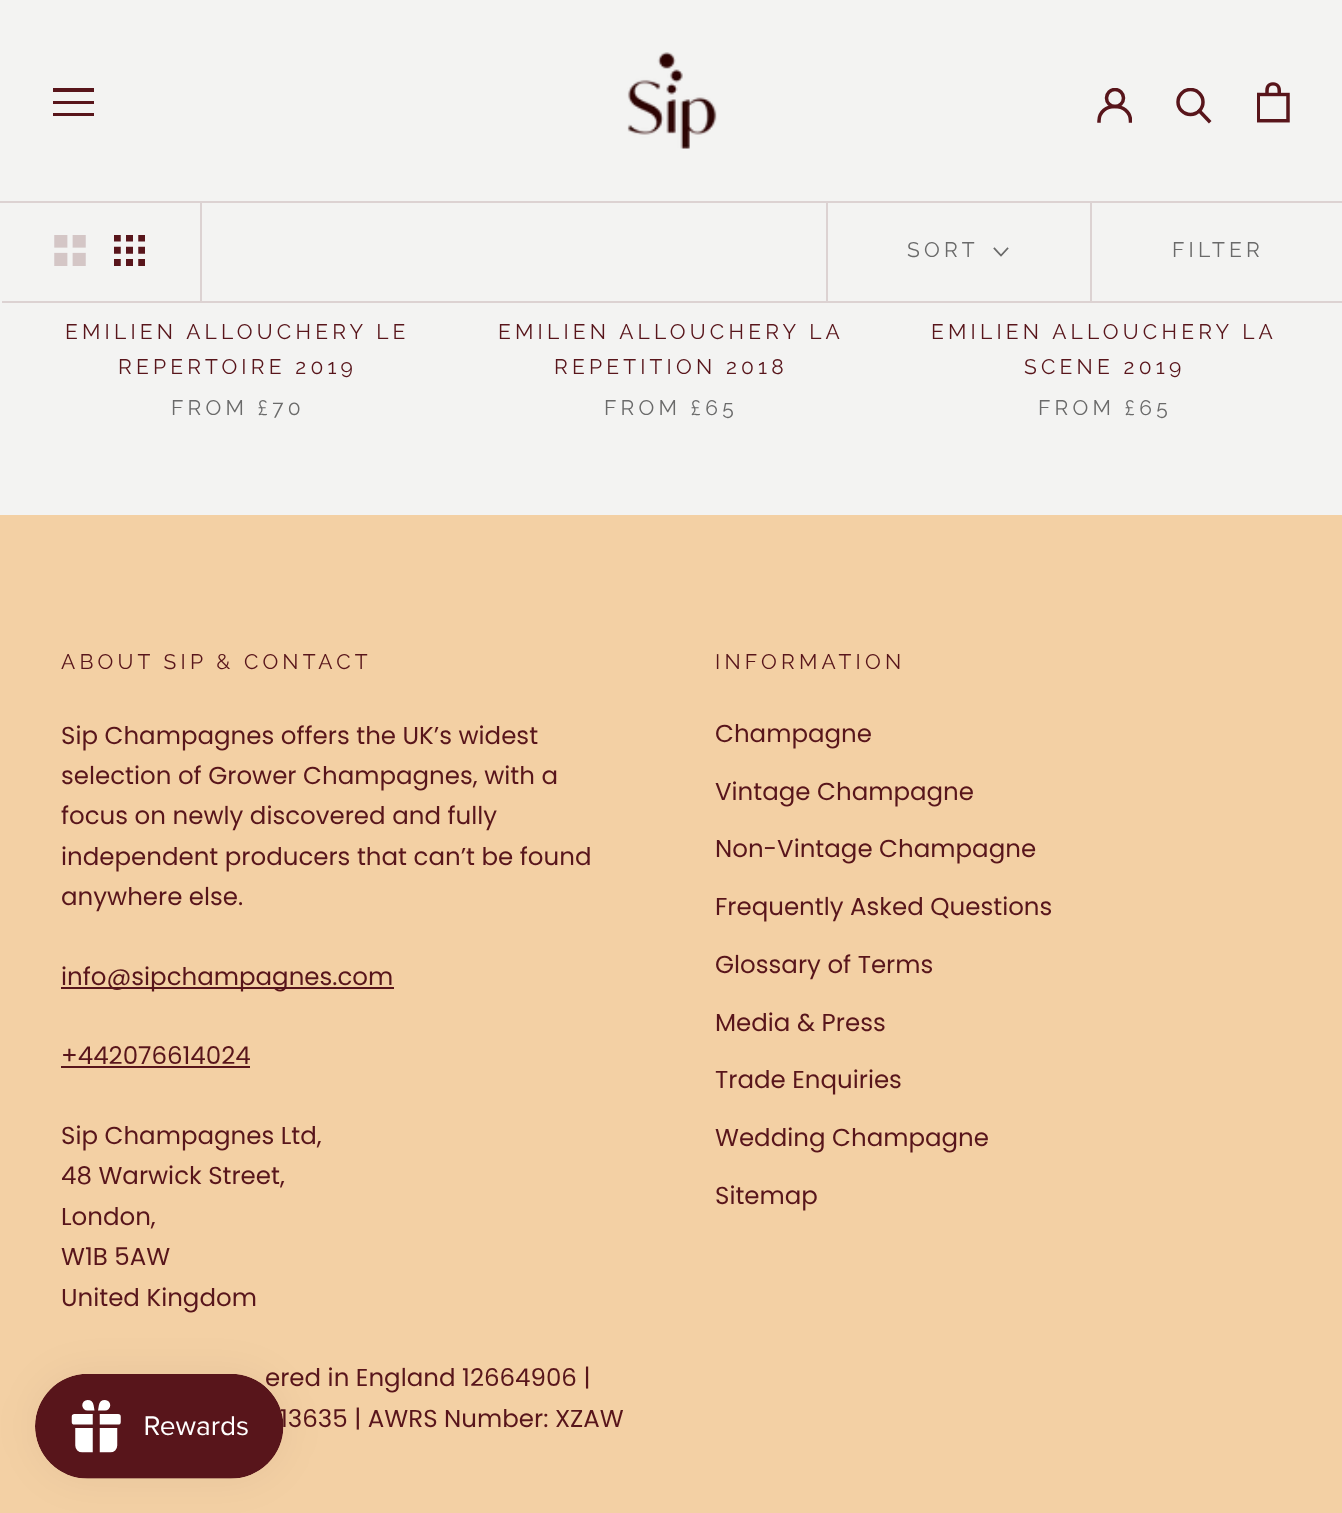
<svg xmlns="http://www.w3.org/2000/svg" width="1342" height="1513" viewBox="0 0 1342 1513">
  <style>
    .t1 { font: 21px Raleway; letter-spacing: 4.2px; fill: #6a6a6a; }
    .t2 { font: 21px Raleway; letter-spacing: 4.2px; fill: #58151b; }
    .t3 { font: 24.5px Poppins; fill: #58151b; }
  </style>
  <defs>
    <clipPath id="clip1"><rect x="53" y="88" width="42" height="29"/></clipPath>
    <clipPath id="clip2"><rect x="1097" y="88" width="35" height="35"/></clipPath>
    <clipPath id="clip3"><rect x="1176" y="88" width="37" height="36"/></clipPath>
  </defs>
  <rect width="100%" height="100%" fill="#f3f3f2"/>
  <rect x="0" y="201" width="1342" height="2" fill="#dcd2d2"/>
  <g clip-path="url(#clip1)">
    <path d="M52 116V113H94V116ZM52 101H94V104H52ZM52 88H94V92H52Z" fill="#58151b"/>
  </g>
  <image x="627" y="52" width="90" height="97" href="images/1.png"/>
  <g clip-path="url(#clip2)">
    <path d="M1099 121C1099 101.5 1130.5 101.5 1130.5 121" fill="none" stroke="#58151b" stroke-width="3.5" stroke-linecap="square"/>
    <circle cx="1115" cy="98" r="8.5" fill="none" stroke="#58151b" stroke-width="3.5"/>
  </g>
  <path d="M1209 121L1199.5 111" fill="none" stroke="#58151b" stroke-width="3.5" stroke-linecap="square"/>
  <g clip-path="url(#clip3)">
    <circle cx="1190.5" cy="102" r="12.5" fill="none" stroke="#58151b" stroke-width="3.5"/>
  </g>
  <image x="1257" y="82" width="33" height="41" href="images/2.png"/>
  <path d="M2 301V303H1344V205H1342V301Z" fill="#dcd2d2"/>
  <rect x="200" y="203" width="2" height="98" fill="#dcd2d2"/>
  <image x="54" y="235" width="32" height="31" href="images/3.png"/>
  <image x="114" y="235" width="31" height="31" href="images/4.png"/>
  <rect x="826" y="203" width="2" height="98" fill="#dcd2d2"/>
  <text x="907" y="257" class="t1">SORT</text>
  <path d="M1007.5 248.5L1001 255.5L994.5 248.5" fill="none" stroke="#6a6a6a" stroke-width="1.8" stroke-linecap="square"/>
  <rect x="1090" y="203" width="2" height="98" fill="#dcd2d2"/>
  <text x="1172" y="257" class="t1">FILTER</text>
  <text x="65" y="339" class="t2">EMILIEN ALLOUCHERY LE</text>
  <text x="118" y="374" class="t2">REPERTOIRE 2019</text>
  <text x="171" y="415" class="t1">FROM £70</text>
  <text x="498" y="339" class="t2">EMILIEN ALLOUCHERY LA</text>
  <text x="554" y="374" class="t2">REPETITION 2018</text>
  <text x="604" y="415" class="t1">FROM £65</text>
  <text x="931" y="339" class="t2">EMILIEN ALLOUCHERY LA</text>
  <text x="1024" y="374" class="t2">SCENE 2019</text>
  <text x="1038" y="415" class="t1">FROM £65</text>
  <rect x="0" y="515" width="1342" height="998" fill="#f3d0a4"/>
  <text x="61" y="669" class="t2">ABOUT SIP &amp; CONTACT</text>
  <text x="61" y="744" class="t3">Sip Champagnes offers the UK’s widest</text>
  <text x="61" y="784" class="t3">selection of Grower Champagnes, with a</text>
  <text x="61" y="824" class="t3">focus on newly discovered and fully</text>
  <text x="61" y="865" class="t3">independent producers that can’t be found</text>
  <text x="61" y="905" class="t3">anywhere else.</text>
  <rect x="61" y="987" width="333" height="2" fill="#58151b"/>
  <text x="61" y="985" class="t3">info@sipchampagnes.com</text>
  <text x="61" y="1064" class="t3">+442076614024</text>
  <rect x="61" y="1066" width="189" height="2" fill="#58151b"/>
  <text x="61" y="1144" class="t3">Sip Champagnes Ltd,</text>
  <text x="61" y="1184" class="t3">48 Warwick Street,</text>
  <text x="61" y="1225" class="t3">London,</text>
  <text x="61" y="1265" class="t3">W1B 5AW</text>
  <text x="61" y="1306" class="t3">United Kingdom</text>
  <text x="265" y="1386" class="t3">ered in England 12664906 |</text>
  <text x="280" y="1427" class="t3">13635 | AWRS Number: XZAW</text>
  <text x="715" y="669" class="t2">INFORMATION</text>
  <text x="715" y="742" class="t3">Champagne</text>
  <text x="715" y="800" class="t3">Vintage Champagne</text>
  <text x="715" y="857" class="t3">Non-Vintage Champagne</text>
  <text x="715" y="915" class="t3">Frequently Asked Questions</text>
  <text x="715" y="973" class="t3">Glossary of Terms</text>
  <text x="715" y="1031" class="t3">Media &amp; Press</text>
  <text x="715" y="1088" class="t3">Trade Enquiries</text>
  <text x="715" y="1146" class="t3">Wedding Champagne</text>
  <text x="715" y="1204" class="t3">Sitemap</text>
  <rect x="35" y="1374" width="249" height="105" rx="52.5" fill="#0000000d" filter="blur(22px)"/>
  <image x="35" y="1374" width="249" height="105" href="images/5.png"/>
</svg>
